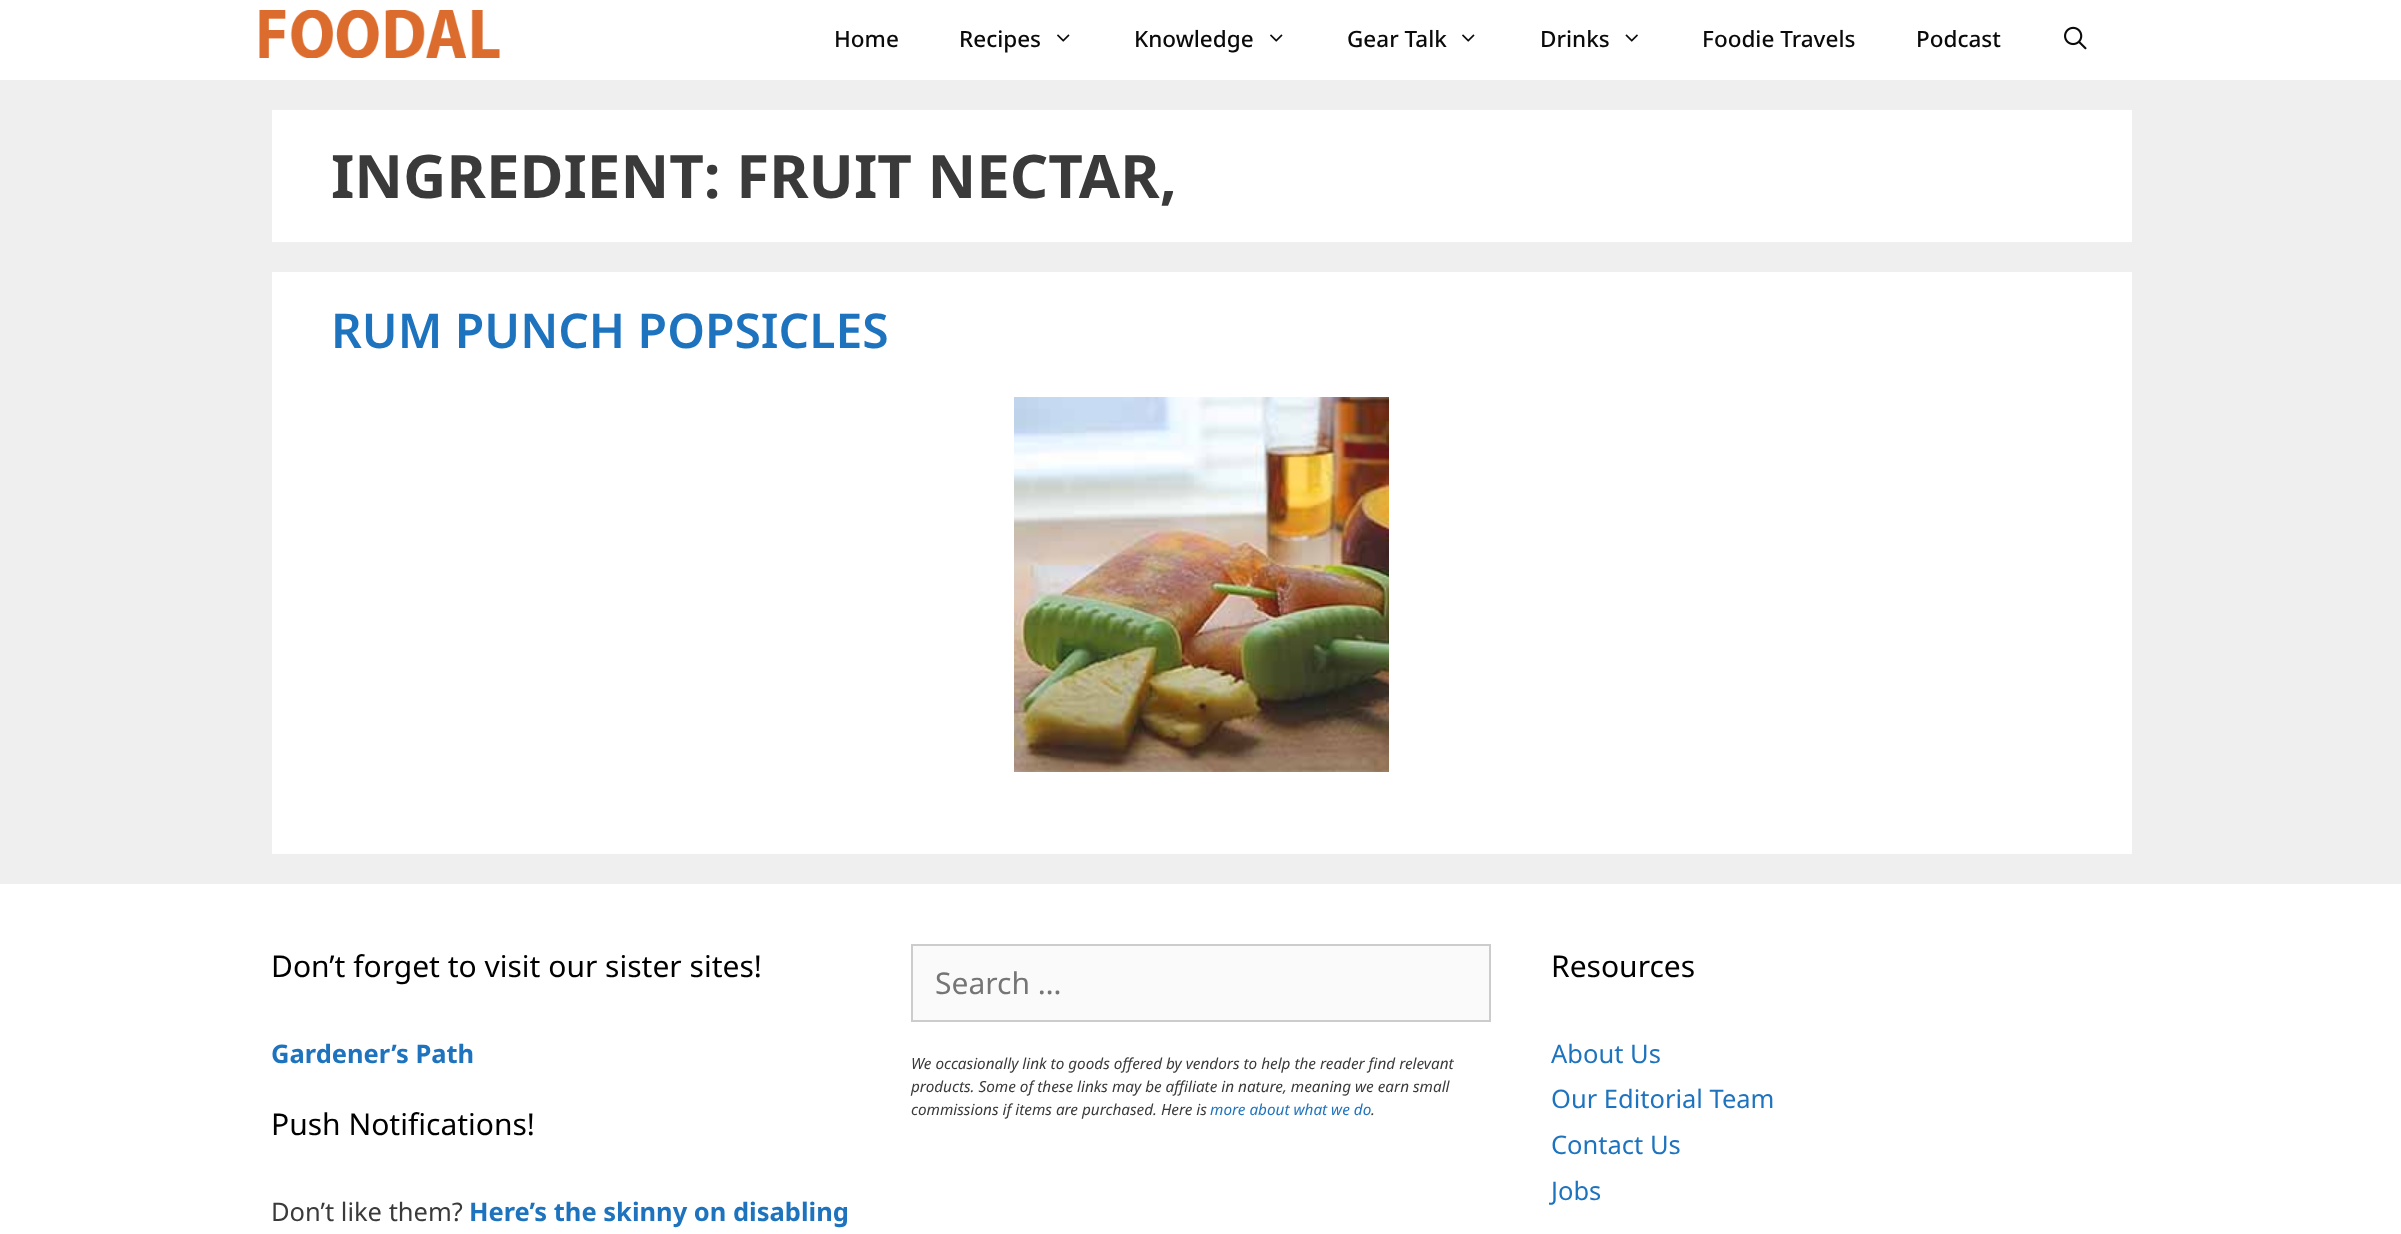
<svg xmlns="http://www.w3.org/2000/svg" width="2401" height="1234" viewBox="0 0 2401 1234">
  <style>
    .t1 { font: 500 22.5px Noto Sans; fill: #0a0a0a; }
    .t2 { font: bold 60px Noto Sans; fill: #3a3a3a; }
    .t3 { font: 600 48px Noto Sans; fill: #1e73be; }
    .t4 { font: 30px Noto Sans; fill: #000; }
    .t5 { font: bold 25.5px Noto Sans; fill: #1e73be; }
    .t6 { font: 25.5px Noto Sans; fill: #3a3a3a; }
    .t7 { font: 30px Noto Sans; fill: #757575; }
    .t8 { font: italic 15.3px Noto Sans; fill: #3a3a3a; }
    .t9 { font: italic 15.3px Noto Sans; fill: #1e73be; }
    .t10 { font: 25.5px Noto Sans; fill: #1e73be; }
  </style>
  <rect width="100%" height="100%" fill="#efefef"/>
  <rect x="0" y="0" width="2401" height="80" fill="#fff"/>
  <image x="259" y="10" width="241" height="48" href="images/1.png"/>
  <text x="834" y="47" class="t1">Home</text>
  <text x="959" y="47" class="t1">Recipes</text>
  <image x="1057" y="34" width="13" height="8" href="images/2.png"/>
  <text x="1134" y="47" class="t1">Knowledge</text>
  <image x="1270" y="34" width="13" height="8" href="images/2.png"/>
  <text x="1347" y="47" class="t1">Gear Talk</text>
  <image x="1462" y="34" width="13" height="8" href="images/2.png"/>
  <text x="1540" y="47" class="t1">Drinks</text>
  <image x="1625" y="34" width="13" height="8" href="images/3.png"/>
  <text x="1702" y="47" class="t1">Foodie Travels</text>
  <text x="1916" y="47" class="t1">Podcast</text>
  <image x="2064" y="26" width="23" height="24" href="images/4.png"/>
  <rect x="272" y="110" width="1860" height="132" fill="#fff"/>
  <text x="331" y="198" class="t2">INGREDIENT: FRUIT NECTAR,</text>
  <rect x="272" y="272" width="1860" height="582" fill="#fff"/>
  <text x="331" y="348" class="t3">RUM PUNCH POPSICLES</text>
  <image x="1014" y="397" width="375" height="375" href="images/5.png"/>
  <rect x="0" y="884" width="2401" height="350" fill="#fff"/>
  <text x="271" y="977" class="t4">Don’t forget to visit our sister sites!</text>
  <text x="271" y="1063" class="t5">Gardener’s Path</text>
  <text x="271" y="1135" class="t4">Push Notifications!</text>
  <text x="271" y="1221" class="t6">Don’t like them?</text>
  <text x="469" y="1221" class="t5">Here’s the skinny on disabling</text>
  <rect x="912" y="945" width="578" height="76" fill="#fafafa" stroke="#ccc" stroke-width="2"/>
  <text x="935" y="994" class="t7">Search …</text>
  <text x="911" y="1069" class="t8">We occasionally link to goods offered by vendors to help the reader find relevant</text>
  <text x="911" y="1092" class="t8">products. Some of these links may be affiliate in nature, meaning we earn small</text>
  <text x="911" y="1115" class="t8">commissions if items are purchased. Here is</text>
  <text x="1210" y="1115" class="t9">more about what we do</text>
  <text x="1371" y="1115" class="t8">.</text>
  <text x="1551" y="977" class="t4">Resources</text>
  <text x="1551" y="1063" class="t10">About Us</text>
  <text x="1551" y="1108" class="t10">Our Editorial Team</text>
  <text x="1551" y="1154" class="t10">Contact Us</text>
  <text x="1551" y="1200" class="t10">Jobs</text>
</svg>
